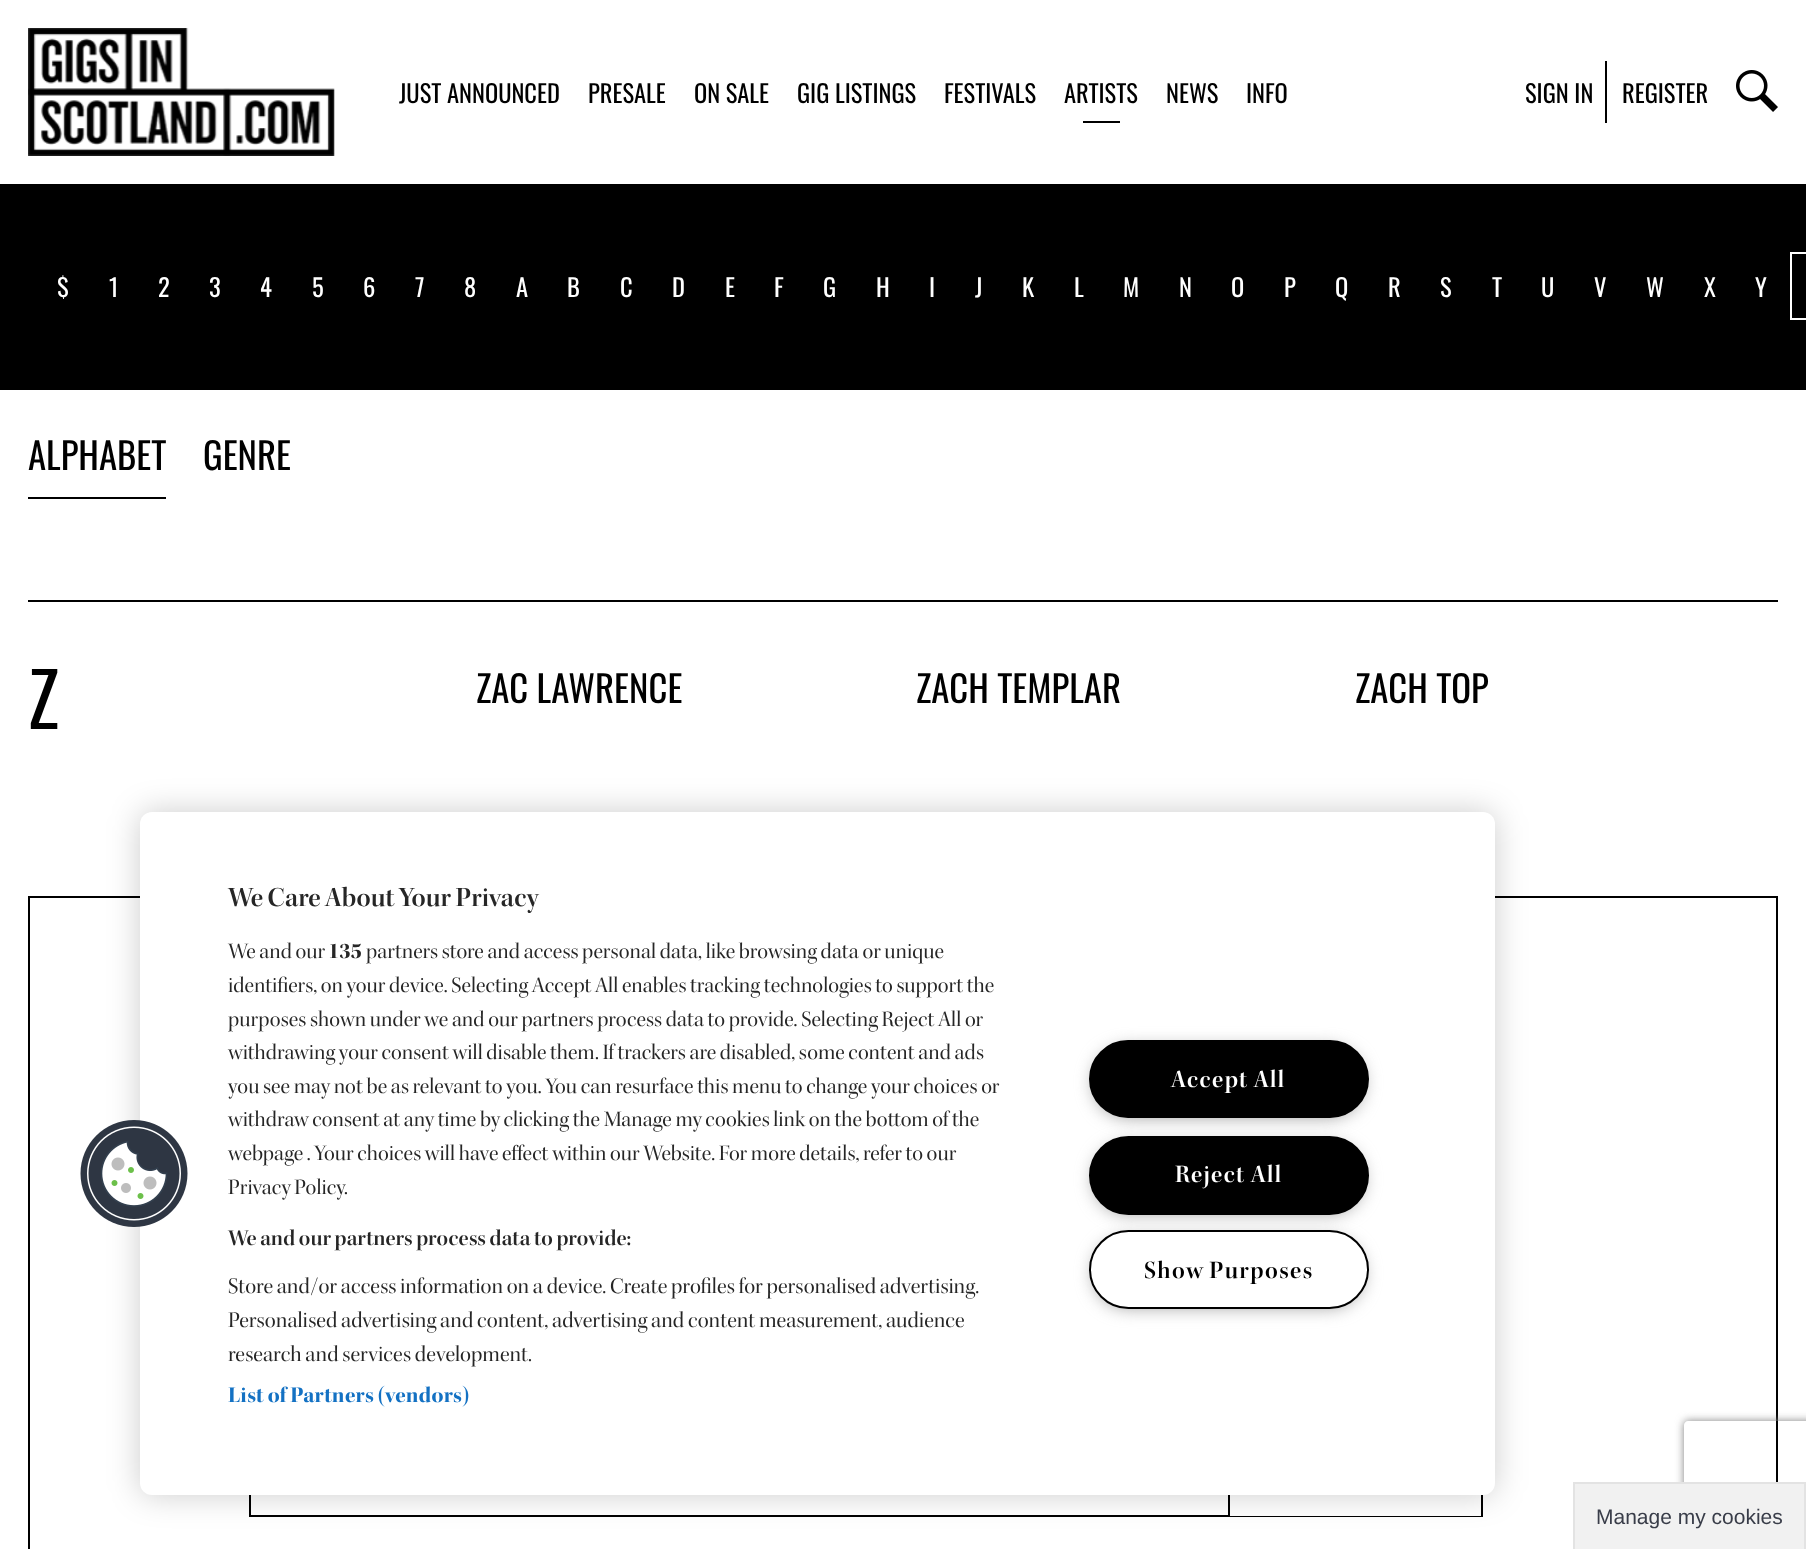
<svg xmlns="http://www.w3.org/2000/svg" width="1806" height="1549" viewBox="0 0 1806 1549">
  <style>
    .t1 { font: 24.5px Oswald; fill: #000; }
    .t2 { font: 24.5px Oswald; fill: #fff; }
    .t3 { font: 36.75px Oswald; fill: #000; }
    .t4 { font: 74px Oswald; letter-spacing: -1px; fill: #000; }
    .t5 { font: 600 28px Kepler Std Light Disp; fill: #262626; }
    .t6 { font: 22.4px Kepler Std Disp; fill: #262626; }
    .t7 { font: bold 22.4px Kepler Std Disp; fill: #262626; }
    .t8 { font: 600 22.75px Kepler Std Light Disp; fill: #262626; }
    .t9 { font: 22.75px Kepler Std Disp; fill: #262626; }
    .t10 { font: bold 22.75px Kepler Std Disp; letter-spacing: 0.25px; fill: #1371c3; }
    .t11 { font: 600 25.25px Kepler Std Light Disp; letter-spacing: 1.25px; fill: #fff; }
    .t12 { font: 600 25.25px Kepler Std Light Disp; letter-spacing: 1.25px; fill: #000; }
    .t13 { font: 21px Liberation Sans; fill: #393d49; }
  </style>
  <defs>
    <clipPath id="clip1"><path d="M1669 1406H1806V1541H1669ZM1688 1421H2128C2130 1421 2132 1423 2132 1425V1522C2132 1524 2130 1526 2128 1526H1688C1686 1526 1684 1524 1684 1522V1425C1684 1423 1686 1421 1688 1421Z" clip-rule="evenodd"/></clipPath>
  </defs>
  <rect width="100%" height="100%" fill="#fff"/>
  <image x="28" y="28" width="307" height="128" href="images/1.png"/>
  <text x="399" y="103" class="t1">JUST ANNOUNCED</text>
  <text x="588" y="103" class="t1">PRESALE</text>
  <text x="694" y="103" class="t1">ON SALE</text>
  <text x="797" y="103" class="t1">GIG LISTINGS</text>
  <text x="944" y="103" class="t1">FESTIVALS</text>
  <text x="1064" y="103" class="t1">ARTISTS</text>
  <rect x="1083" y="121" width="37" height="2" fill="#000"/>
  <text x="1166" y="103" class="t1">NEWS</text>
  <text x="1246" y="103" class="t1">INFO</text>
  <text x="1525" y="103" class="t1">SIGN IN</text>
  <rect x="1605" y="61" width="2" height="62" fill="#000"/>
  <text x="1622" y="103" class="t1">REGISTER</text>
  <image x="1736" y="70" width="42" height="42" href="images/2.png"/>
  <rect x="0" y="184" width="1806" height="206" fill="#000"/>
  <text x="57" y="297" class="t2">$</text>
  <text x="109" y="297" class="t2">1</text>
  <text x="158" y="297" class="t2">2</text>
  <text x="209" y="297" class="t2">3</text>
  <text x="260" y="297" class="t2">4</text>
  <text x="312" y="297" class="t2">5</text>
  <text x="363" y="297" class="t2">6</text>
  <text x="415" y="297" class="t2">7</text>
  <text x="464" y="297" class="t2">8</text>
  <text x="516" y="297" class="t2">A</text>
  <text x="567" y="297" class="t2">B</text>
  <text x="620" y="297" class="t2">C</text>
  <text x="672" y="297" class="t2">D</text>
  <text x="725" y="297" class="t2">E</text>
  <text x="774" y="297" class="t2">F</text>
  <text x="823" y="297" class="t2">G</text>
  <text x="876" y="297" class="t2">H</text>
  <text x="929" y="297" class="t2">I</text>
  <text x="975" y="297" class="t2">J</text>
  <text x="1022" y="297" class="t2">K</text>
  <text x="1074" y="297" class="t2">L</text>
  <text x="1123" y="297" class="t2">M</text>
  <text x="1179" y="297" class="t2">N</text>
  <text x="1231" y="297" class="t2">O</text>
  <text x="1284" y="297" class="t2">P</text>
  <text x="1335" y="297" class="t2">Q</text>
  <text x="1388" y="297" class="t2">R</text>
  <text x="1440" y="297" class="t2">S</text>
  <text x="1492" y="297" class="t2">T</text>
  <text x="1541" y="297" class="t2">U</text>
  <text x="1594" y="297" class="t2">V</text>
  <text x="1646" y="297" class="t2">W</text>
  <text x="1704" y="297" class="t2">X</text>
  <text x="1755" y="297" class="t2">Y</text>
  <rect x="1791" y="253" width="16" height="66" fill="none" stroke="#fff" stroke-width="2"/>
  <text x="28" y="470" class="t3">ALPHABET</text>
  <rect x="28" y="497" width="138" height="2" fill="#000"/>
  <text x="203" y="470" class="t3">GENRE</text>
  <rect x="28" y="600" width="1750" height="2" fill="#000"/>
  <text x="28" y="729" class="t4">Z</text>
  <text x="476" y="703" class="t3">ZAC LAWRENCE</text>
  <text x="916" y="703" class="t3">ZACH TEMPLAR</text>
  <text x="1355" y="703" class="t3">ZACH TOP</text>
  <rect x="29" y="897" width="1748" height="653" fill="none" stroke="#000" stroke-width="2"/>
  <rect x="250" y="1426" width="979" height="90" fill="none" stroke="#000" stroke-width="2"/>
  <rect x="1481" y="1495" width="2" height="22" fill="#000"/>
  <rect x="1230" y="1516" width="252" height="1" fill="#000"/>
  <rect x="140" y="812" width="1355" height="683" rx="12" fill="#00000033" filter="blur(16px)"/>
  <rect x="140" y="812" width="1355" height="683" rx="12" fill="#fff"/>
  <image x="80" y="1120" width="108" height="107" href="images/3.png"/>
  <text x="228" y="906" class="t5">We Care About Your Privacy</text>
  <text x="228" y="958" class="t6">We and our</text>
  <text x="328" y="958" class="t7">135</text>
  <text x="366" y="958" class="t6">partners store and access personal data, like browsing data or unique</text>
  <text x="228" y="992" class="t6">identifiers, on your device. Selecting Accept All enables tracking technologies to support the</text>
  <text x="228" y="1026" class="t6">purposes shown under we and our partners process data to provide. Selecting Reject All or</text>
  <text x="228" y="1059" class="t6">withdrawing your consent will disable them. If trackers are disabled, some content and ads</text>
  <text x="228" y="1093" class="t6">you see may not be as relevant to you. You can resurface this menu to change your choices or</text>
  <text x="228" y="1126" class="t6">withdraw consent at any time by clicking the Manage my cookies link on the bottom of the</text>
  <text x="228" y="1160" class="t6">webpage . Your choices will have effect within our Website. For more details, refer to our</text>
  <text x="228" y="1194" class="t6">Privacy Policy.</text>
  <text x="228" y="1245" class="t8">We and our partners process data to provide:</text>
  <text x="228" y="1293" class="t9">Store and/or access information on a device. Create profiles for personalised advertising.</text>
  <text x="228" y="1327" class="t9">Personalised advertising and content, advertising and content measurement, audience</text>
  <text x="228" y="1361" class="t9">research and services development.</text>
  <text x="228" y="1402" class="t10">List of Partners (vendors)</text>
  <rect x="1094" y="1048" width="269" height="69" rx="34.5" fill="#999" filter="blur(9px)"/>
  <rect x="1090" y="1041" width="278" height="76" rx="38" fill="#000" stroke="#000" stroke-width="2"/>
  <text x="1171" y="1087" class="t11">Accept All</text>
  <rect x="1094" y="1145" width="269" height="68" rx="34" fill="#999" filter="blur(9px)"/>
  <rect x="1090" y="1137" width="278" height="77" rx="38.5" fill="#000" stroke="#000" stroke-width="2"/>
  <text x="1175" y="1182" class="t11">Reject All</text>
  <rect x="1094" y="1239" width="269" height="68" rx="34" fill="#999" filter="blur(9px)"/>
  <rect x="1090" y="1231" width="278" height="77" rx="38.5" fill="#fff" stroke="#000" stroke-width="2"/>
  <text x="1144" y="1278" class="t12">Show Purposes</text>
  <g clip-path="url(#clip1)">
    <rect x="1684" y="1421" width="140" height="105" rx="4" fill="#808080" filter="blur(4.5px)"/>
  </g>
  <rect x="1574" y="1483" width="231" height="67" fill="#f1f1f1" stroke="#e3e3e3" stroke-width="2"/>
  <text x="1596" y="1524" class="t13">Manage my cookies</text>
</svg>
